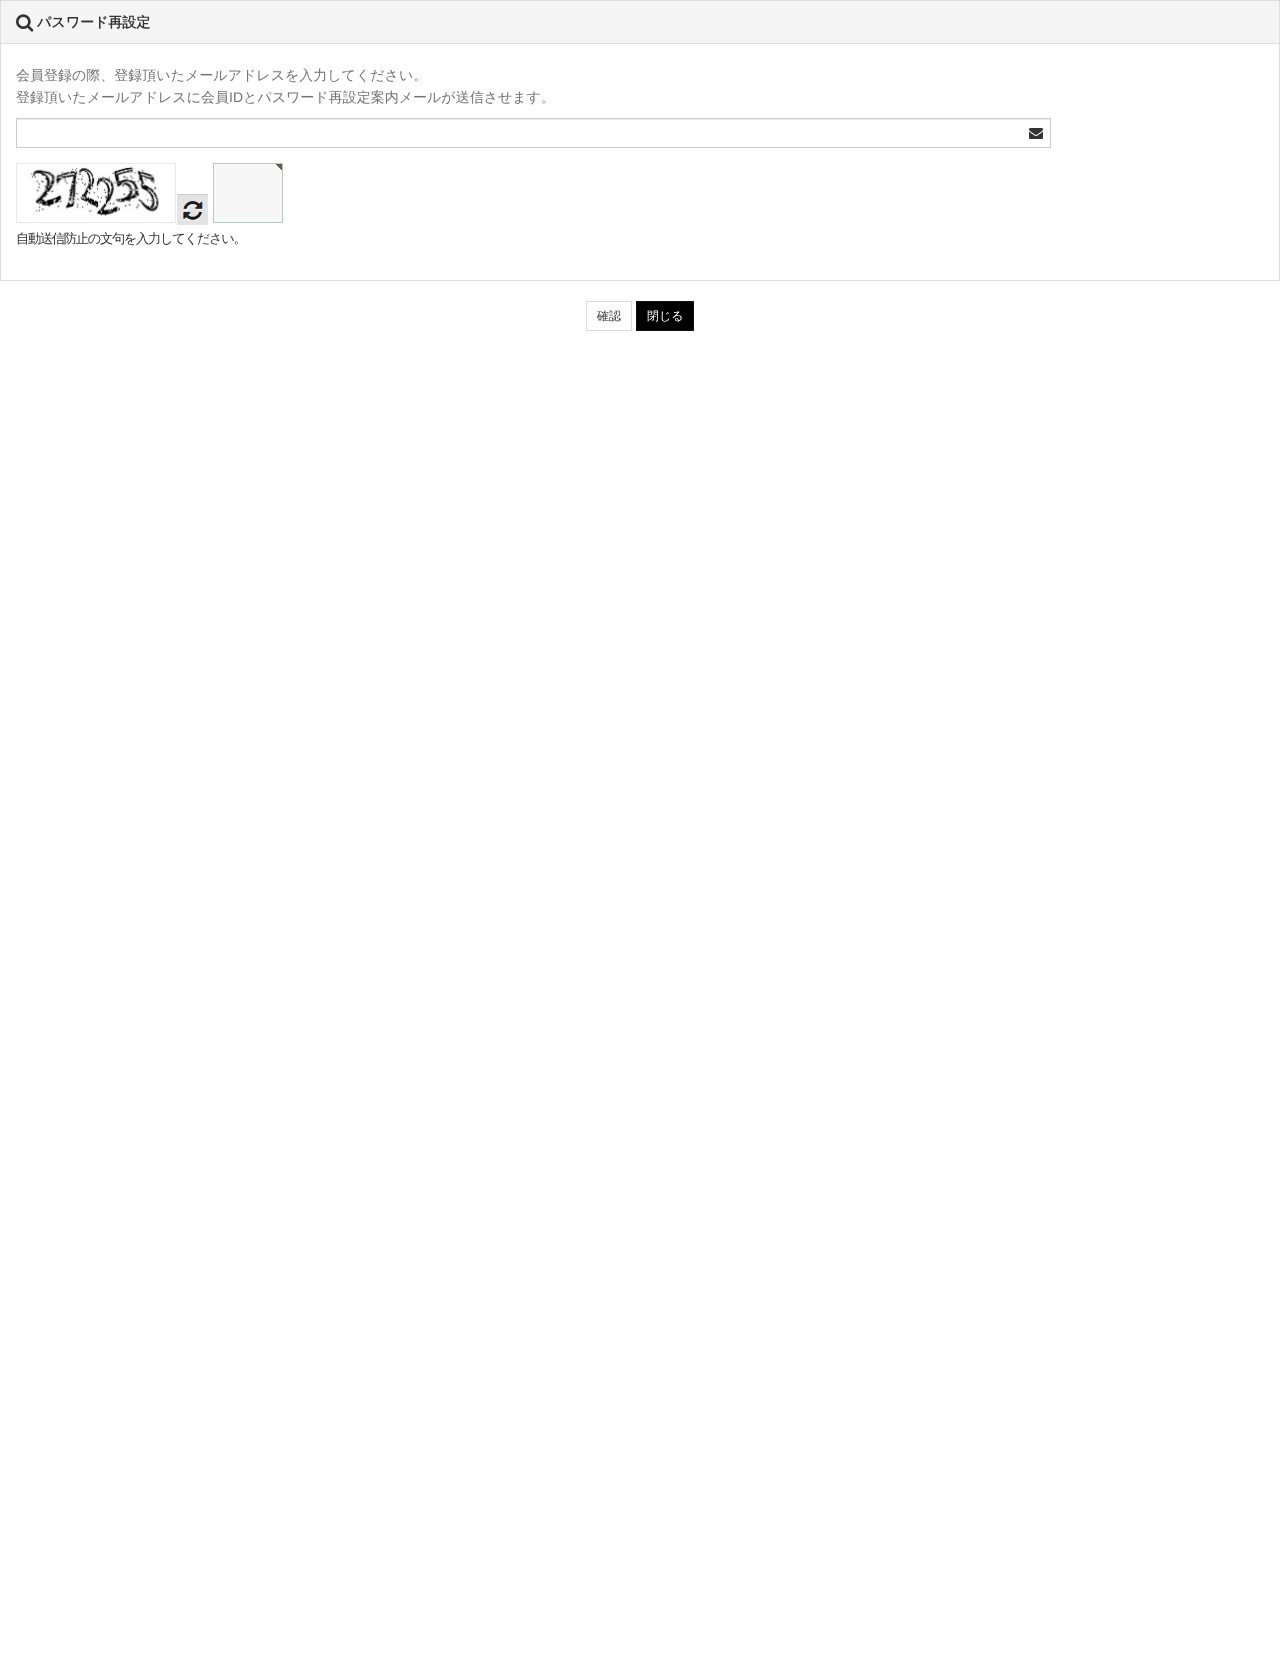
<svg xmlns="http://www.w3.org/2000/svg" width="1280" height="1663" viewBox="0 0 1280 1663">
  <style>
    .t1 { font: bold 14px WenQuanYi Zen Hei; fill: #333; }
    .t2 { font: 500 14px WenQuanYi Zen Hei; fill: #737373; }
    .t3 { font: 14px Liberation Sans; fill: #737373; }
    .t4 { font: 500 13.25px WenQuanYi Zen Hei; letter-spacing: -1.3px; fill: #333; }
    .t5 { font: 500 12px WenQuanYi Zen Hei; fill: #333; }
    .t6 { font: 500 12px WenQuanYi Zen Hei; fill: #fff; }
  </style>
  <rect width="100%" height="100%" fill="#fff"/>
  <rect x="0.5" y="0.5" width="1279" height="280" fill="none" stroke="#ddd"/>
  <rect x="1" y="1" width="1278" height="42" fill="#f5f5f5"/>
  <rect x="1" y="43" width="1278" height="1" fill="#ddd"/>
  <image x="16" y="14" width="18" height="18" href="images/1.png"/>
  <text x="37" y="27" class="t1">パスワード再設定</text>
  <text x="16" y="80" class="t2">会員登録の際、登録頂いたメールアドレスを入力してください。</text>
  <text x="16" y="102" class="t2">登録頂いたメールアドレスに会員</text>
  <text x="229" y="102" class="t3">ID</text>
  <text x="243" y="102" class="t2">とパスワード再設定案内メールが送信させます。</text>
  <rect x="17" y="119" width="1033" height="1" fill="#ececec"/>
  <rect x="16.5" y="118.5" width="1034" height="29" fill="none" stroke="#ccc"/>
  <image x="1029" y="128" width="14" height="11" href="images/2.png"/>
  <rect x="16.5" y="163.5" width="159" height="59" fill="none" stroke="#e9e9e9"/>
  <rect x="214" y="164" width="68" height="58" fill="#f7f7f7"/>
  <image x="276" y="164" width="6" height="6" href="images/3.png"/>
  <rect x="213.5" y="163.5" width="69" height="59" fill="none" stroke="#b8c9c2"/>
  <image x="26" y="164" width="134" height="54" href="images/4.png"/>
  <image x="177" y="195" width="31" height="30" href="images/5.png"/>
  <rect x="177" y="194" width="31" height="1" fill="#ccc"/>
  <text x="16" y="243" class="t4">自動送信防止の文句を入力してください。</text>
  <rect x="586.5" y="301.5" width="45" height="29" fill="none" stroke="#ddd"/>
  <text x="597" y="320" class="t5">確認</text>
  <rect x="636.5" y="301.5" width="57" height="29" fill="#000" stroke="#111"/>
  <text x="647" y="320" class="t6">閉じる</text>
</svg>
